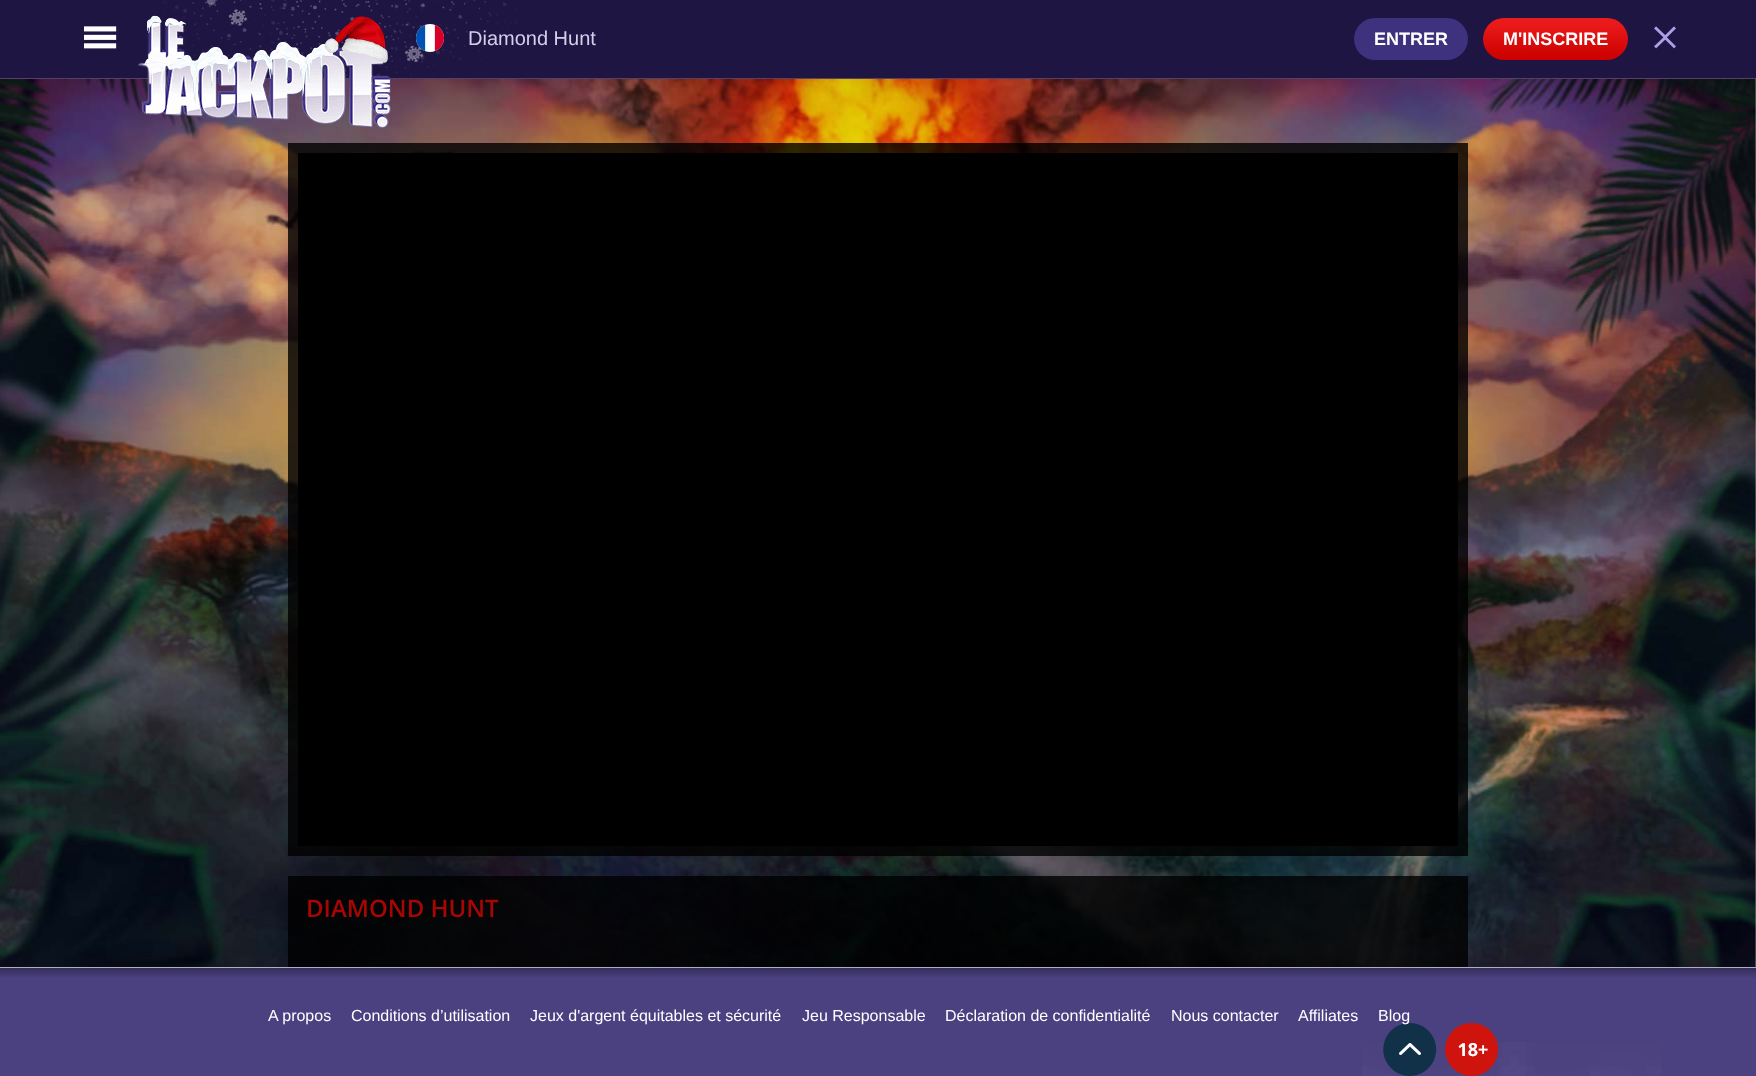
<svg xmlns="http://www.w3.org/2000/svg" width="1756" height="1076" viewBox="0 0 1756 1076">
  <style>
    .t1 { font: 20px Liberation Sans; fill: #d5cfeb; }
    .t2 { font: bold 18px Liberation Sans; fill: #fff; }
    .t3 { font: 600 24px Open Sans; fill: #a80602; }
    .t4 { font: 16px Liberation Sans; fill: #fff; }
  </style>
  <defs>
    <linearGradient id="g1" gradientUnits="userSpaceOnUse" x1="1556" y1="18" x2="1556" y2="60"><stop offset="0" stop-color="#ed1c1c"/><stop offset="0.21" stop-color="#e81818"/><stop offset="0.62" stop-color="#d80a0a"/><stop offset="1" stop-color="#c00"/></linearGradient>
    <linearGradient id="g2" gradientUnits="userSpaceOnUse" x1="878" y1="968" x2="878" y2="978"><stop offset="0" stop-color="#352d5a"/><stop offset="1" stop-color="#4b4080"/></linearGradient>
  </defs>
  <rect width="100%" height="100%" fill="#fff"/>
  <image x="0" y="79" width="1756" height="888" href="images/1.png"/>
  <rect x="0" y="0" width="1756" height="78" fill="#1e1543"/>
  <rect x="0" y="78" width="1756" height="1" fill="#534167"/>
  <image x="163" y="0" width="355" height="79" href="images/3.png"/>
  <text x="468" y="45" class="t1">Diamond Hunt</text>
  <image x="1654" y="26" width="22" height="23" href="images/2.png"/>
  <image x="138" y="15" width="253" height="113" href="images/4.png"/>
  <image x="84" y="26" width="33" height="23" href="images/5.png"/>
  <image x="416" y="24" width="28" height="28" href="images/6.png"/>
  <rect x="1354" y="18" width="114" height="42" rx="21" fill="#3e317d"/>
  <text x="1374" y="45" class="t2">ENTRER</text>
  <rect x="1483" y="18" width="145" height="42" rx="21" fill="url(#g1)"/>
  <text x="1503" y="45" class="t2">M'INSCRIRE</text>
  <rect x="288" y="143" width="1180" height="713" fill="#000000cc"/>
  <rect x="298" y="153" width="1160" height="693" fill="#000"/>
  <rect x="288" y="876" width="1180" height="91" fill="#000000cc"/>
  <text x="306" y="917" class="t3">DIAMOND HUNT</text>
  <rect x="0" y="978" width="1756" height="98" fill="#4b4080"/>
  <image x="1362" y="1042" width="300" height="34" href="images/7.png"/>
  <rect x="0" y="967" width="1756" height="1" fill="#b0adc0"/>
  <rect x="0" y="968" width="1756" height="10" fill="url(#g2)"/>
  <text x="268" y="1021" class="t4">A propos</text>
  <text x="351" y="1021" class="t4">Conditions d’utilisation</text>
  <text x="530" y="1021" class="t4">Jeux d'argent équitables et sécurité</text>
  <text x="802" y="1021" class="t4">Jeu Responsable</text>
  <text x="945" y="1021" class="t4">Déclaration de confidentialité</text>
  <text x="1171" y="1021" class="t4">Nous contacter</text>
  <text x="1298" y="1021" class="t4">Affiliates</text>
  <image x="1383" y="1023" width="54" height="53" href="images/8.png"/>
  <text x="1378" y="1021" class="t4">Blog</text>
  <image x="1445" y="1023" width="53" height="53" href="images/9.png"/>
</svg>
